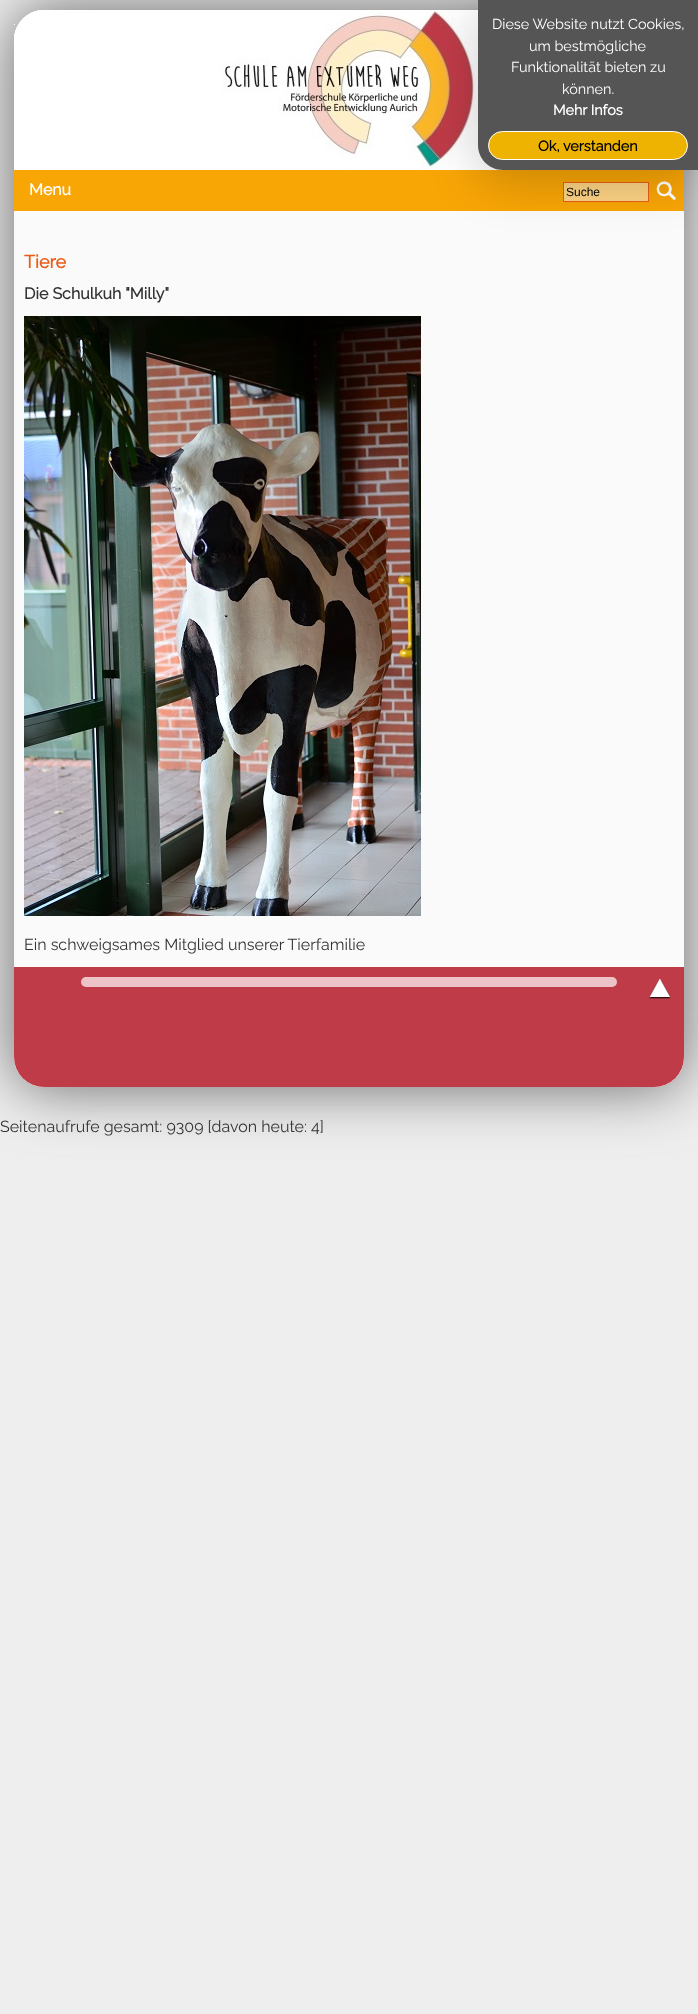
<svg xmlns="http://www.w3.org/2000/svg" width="698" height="2014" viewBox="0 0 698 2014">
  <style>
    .t1 { font: 100 14.4px Raleway; fill: #fff; }
    .t2 { font: bold 14.4px Raleway; fill: #fff; }
    .t3 { font: bold 14.4px Raleway; fill: #000; }
    .t4 { font: bold 16px Raleway; fill: #fff; }
    .t5 { font: 12px Liberation Sans; fill: #000; }
    .t6 { font: bold 18px Raleway; fill: #e85d19; }
    .t7 { font: bold 16px Raleway; fill: #333; }
    .t8 { font: 100 16px Raleway; fill: #333; }
  </style>
  <defs>
    <clipPath id="clip1"><path d="M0 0H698V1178H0ZM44 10H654C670.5 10 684 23.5 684 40V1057C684 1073.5 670.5 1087 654 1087H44C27.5 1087 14 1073.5 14 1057V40C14 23.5 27.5 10 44 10Z" clip-rule="evenodd"/></clipPath>
  </defs>
  <rect width="100%" height="100%" fill="#eee"/>
  <g clip-path="url(#clip1)">
    <rect x="14" y="10" width="670" height="1077" rx="30" fill="#666" filter="blur(30px)"/>
  </g>
  <rect x="14" y="10" width="670" height="1077" rx="30" fill="#ffffffb3"/>
  <path d="M44 10H654C670.5 10 684 23.5 684 40V170H14V40C14 23.5 27.5 10 44 10Z" fill="#fff"/>
  <image x="14" y="10" width="489" height="160" href="images/1.png"/>
  <rect x="14" y="170" width="670" height="41" fill="#f8a506"/>
  <rect x="563.5" y="182.5" width="85" height="19" fill="#fcd283" stroke="#e85d19"/>
  <image x="656" y="181" width="20" height="19" href="images/2.png"/>
  <rect x="478" y="10" width="220" height="170" rx="25" fill="#00000033" filter="blur(25px)"/>
  <path d="M478 0H698V170H503C489 170 478 159 478 145Z" fill="#555"/>
  <text x="492" y="29" class="t1">Diese Website nutzt Cookies,</text>
  <text x="529" y="51" class="t1">um bestmögliche</text>
  <text x="511" y="72" class="t1">Funktionalität bieten zu</text>
  <text x="562" y="94" class="t1">können.</text>
  <text x="553" y="115" class="t2">Mehr Infos</text>
  <rect x="488.5" y="131.5" width="199" height="28" rx="14" fill="#eeb300" stroke="#fff"/>
  <text x="538" y="151" class="t3">Ok, verstanden</text>
  <rect x="14" y="24" width="1" height="1" fill="#fff"/>
  <text x="29" y="195" class="t4">Menu</text>
  <text x="566" y="196" class="t5">Suche</text>
  <text x="24" y="268" class="t6">Tiere</text>
  <text x="24" y="299" class="t7">Die Schulkuh "Milly"</text>
  <image x="24" y="316" width="397" height="600" href="images/3.png"/>
  <text x="24" y="950" class="t8">Ein schweigsames Mitglied unserer Tierfamilie</text>
  <path d="M14 967H684V1057C684 1073.5 670.5 1087 654 1087H44C27.5 1087 14 1073.5 14 1057Z" fill="#fff"/>
  <image x="14" y="967" width="670" height="120" href="images/4.png"/>
  <rect x="81" y="977" width="536" height="10" rx="5" fill="#ecc4c8"/>
  <image x="649" y="979" width="22" height="20" href="images/5.png"/>
  <text x="0" y="1132" class="t8">Seitenaufrufe gesamt: 9309 [davon heute: 4]</text>
</svg>
